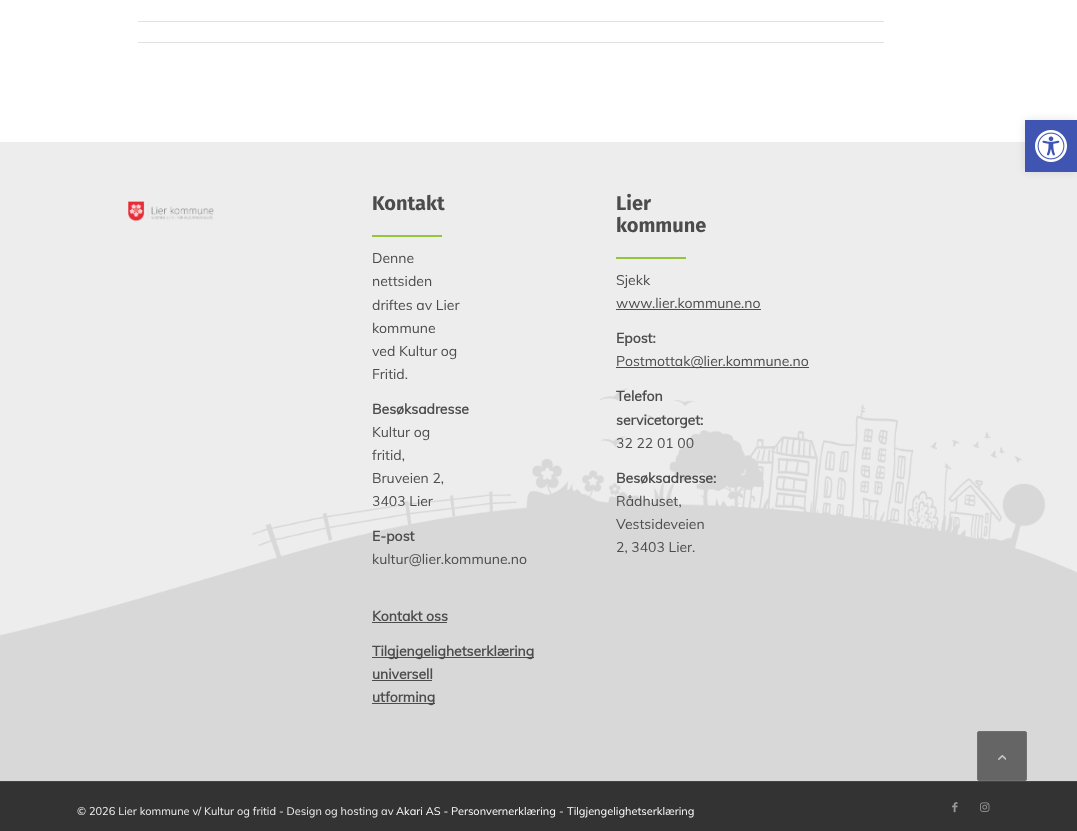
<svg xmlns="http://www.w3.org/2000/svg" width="1077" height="831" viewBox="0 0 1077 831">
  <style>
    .t1 { font: bold 20px Fira Sans; fill: #4c4c4c; }
    .t2 { font: 14px Muli; fill: #4c4c4c; }
    .t3 { font: bold 14px Muli; fill: #4c4c4c; }
    .t4 { font: 11px Muli; fill: #eee; }
    .t5 { font: 11px Muli; fill: #fff; }
  </style>
  <rect width="100%" height="100%" fill="#fff"/>
  <rect x="0" y="142" width="1077" height="494" fill="#ededed"/>
  <rect x="1025" y="120" width="52" height="52" fill="#0000001a" filter="blur(5px)"/>
  <rect x="1025" y="120" width="52" height="52" fill="#4054b2"/>
  <image x="1035" y="130" width="32" height="32" href="images/1.png"/>
  <rect x="138" y="21" width="746" height="1" fill="#e1e1e1"/>
  <rect x="138" y="42" width="746" height="1" fill="#e1e1e1"/>
  <image x="0" y="388" width="1077" height="393" href="images/2.png"/>
  <image x="128" y="201" width="86" height="21" href="images/3.png"/>
  <text x="372" y="210" class="t1">Kontakt</text>
  <rect x="372" y="235" width="70" height="2" fill="#93c439"/>
  <text x="372" y="263" class="t2">Denne</text>
  <text x="372" y="286" class="t2">nettsiden</text>
  <text x="372" y="310" class="t2">driftes av Lier</text>
  <text x="372" y="333" class="t2">kommune</text>
  <text x="372" y="356" class="t2">ved Kultur og</text>
  <text x="372" y="379" class="t2">Fritid.</text>
  <text x="372" y="414" class="t3">Besøksadresse</text>
  <text x="372" y="437" class="t2">Kultur og</text>
  <text x="372" y="460" class="t2">fritid,</text>
  <text x="372" y="483" class="t2">Bruveien 2,</text>
  <text x="372" y="506" class="t2">3403 Lier</text>
  <text x="372" y="541" class="t3">E-post</text>
  <text x="372" y="564" class="t2">kultur@lier.kommune.no</text>
  <text x="372" y="621" class="t3">Kontakt oss</text>
  <rect x="372" y="622" width="75" height="1" fill="#4c4c4c"/>
  <rect x="372" y="657" width="162" height="1" fill="#4c4c4c"/>
  <text x="372" y="656" class="t3">Tilgjengelighetserklæring</text>
  <text x="372" y="679" class="t3">universell</text>
  <rect x="372" y="680" width="60" height="1" fill="#4c4c4c"/>
  <rect x="372" y="703" width="63" height="1" fill="#4c4c4c"/>
  <text x="372" y="702" class="t3">utforming</text>
  <text x="616" y="210" class="t1">Lier</text>
  <text x="616" y="232" class="t1">kommune</text>
  <rect x="616" y="257" width="70" height="2" fill="#93c439"/>
  <text x="616" y="285" class="t2">Sjekk</text>
  <text x="616" y="308" class="t2">www.lier.kommune.no</text>
  <rect x="616" y="309" width="145" height="1" fill="#4c4c4c"/>
  <text x="616" y="343" class="t3">Epost:</text>
  <rect x="616" y="367" width="193" height="1" fill="#4c4c4c"/>
  <text x="616" y="366" class="t2">Postmottak@lier.kommune.no</text>
  <text x="616" y="401" class="t3">Telefon</text>
  <text x="616" y="425" class="t3">servicetorget:</text>
  <text x="616" y="448" class="t2">32 22 01 00</text>
  <text x="616" y="483" class="t3">Besøksadresse:</text>
  <text x="616" y="506" class="t2">Rådhuset,</text>
  <text x="616" y="529" class="t2">Vestsideveien</text>
  <text x="616" y="552" class="t2">2, 3403 Lier.</text>
  <rect x="0" y="782" width="1077" height="49" fill="#333"/>
  <rect x="0" y="781" width="1077" height="1" fill="#444"/>
  <text x="77" y="815" class="t4">© 2026 Lier kommune v/ Kultur og fritid - Design og hosting av</text>
  <text x="396" y="815" class="t5">Akari AS - Personvernerklæring</text>
  <text x="559" y="815" class="t4">-</text>
  <text x="567" y="815" class="t5">Tilgjengelighetserklæring</text>
  <image x="952" y="802" width="6" height="11" href="images/4.png"/>
  <image x="980" y="802" width="10" height="10" href="images/5.png"/>
  <rect x="977.5" y="731.5" width="49" height="49" rx="1.5" fill="#656565" stroke="#707071"/>
  <image x="998" y="755" width="8" height="5" href="images/6.png"/>
</svg>
